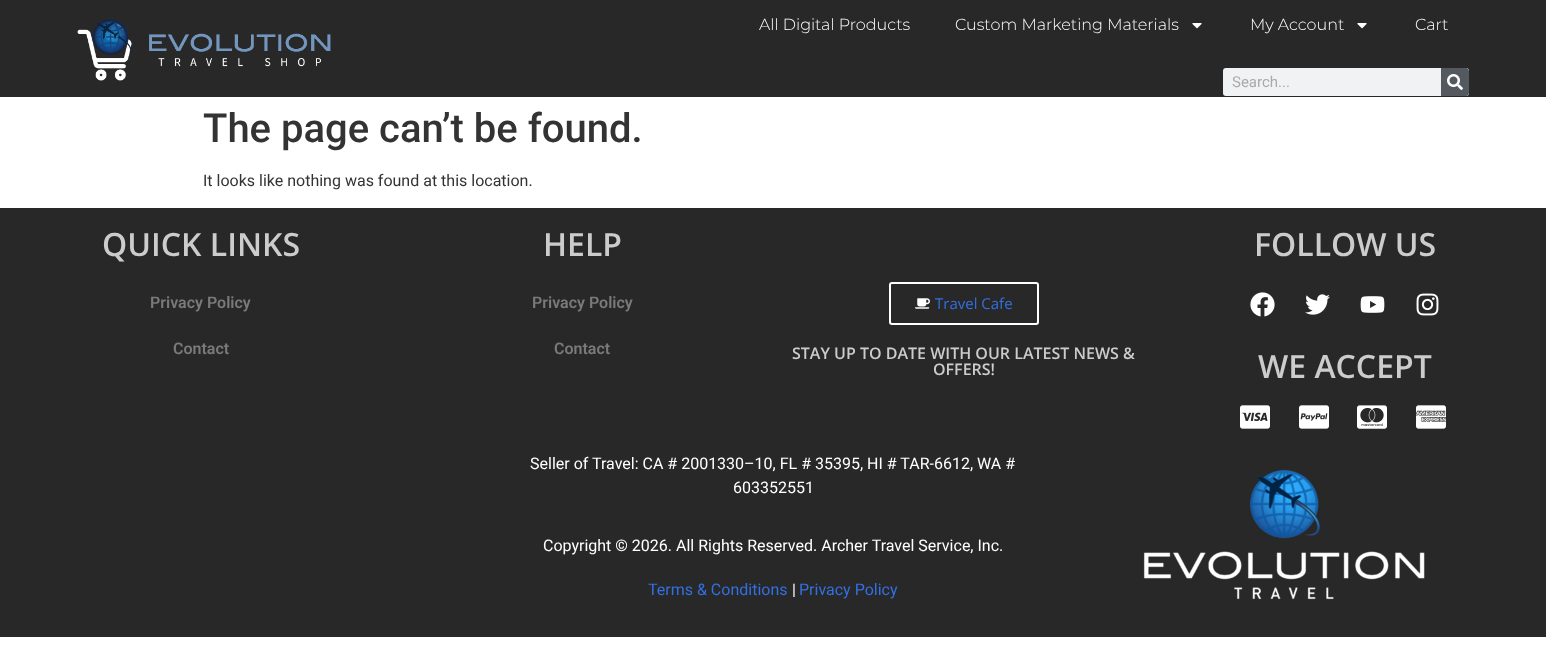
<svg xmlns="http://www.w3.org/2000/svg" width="1546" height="649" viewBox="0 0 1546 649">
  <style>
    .t1 { font: 300 16px Montserrat; fill: #fff; }
    .t2 { font: 15px Roboto; fill: #aaa; }
    .t3 { font: 500 40px Roboto; fill: #333; }
    .t4 { font: 16px Roboto; fill: #333; }
    .t5 { font: 600 32px Open Sans; fill: #ccc; }
    .t6 { font: 600 16px Roboto; fill: #7a7a7a; }
    .t7 { font: 15px Open Sans; fill: #3270e3; }
    .t8 { font: 600 16px Open Sans; fill: #ccc; }
    .t9 { font: 16px Roboto; fill: #fff; }
    .t10 { font: 16px Roboto; fill: #3270e3; }
  </style>
  <rect width="100%" height="100%" fill="#fff"/>
  <rect x="0" y="0" width="1546" height="97" fill="#282828"/>
  <image x="77" y="19" width="254" height="62" href="images/1.png"/>
  <text x="759" y="30" class="t1">All Digital Products</text>
  <text x="955" y="30" class="t1">Custom Marketing Materials</text>
  <image x="1192" y="23" width="10" height="6" href="images/2.png"/>
  <text x="1250" y="30" class="t1">My Account</text>
  <image x="1357" y="23" width="10" height="6" href="images/2.png"/>
  <text x="1415" y="30" class="t1">Cart</text>
  <rect x="1223" y="68" width="246" height="28" rx="3" fill="#f1f2f3"/>
  <text x="1232" y="87" class="t2">Search...</text>
  <path d="M1441 68H1466C1467.5 68 1469 69.5 1469 71V93C1469 94.5 1467.5 96 1466 96H1441Z" fill="#54595f"/>
  <image x="1447" y="74" width="16" height="16" href="images/3.png"/>
  <text x="203" y="142" class="t3">The page can’t be found.</text>
  <text x="203" y="186" class="t4">It looks like nothing was found at this location.</text>
  <rect x="0" y="208" width="1546" height="429" fill="#282828"/>
  <text x="102" y="256" class="t5">QUICK LINKS</text>
  <text x="150" y="308" class="t6">Privacy Policy</text>
  <text x="173" y="354" class="t6">Contact</text>
  <text x="543" y="256" class="t5">HELP</text>
  <text x="532" y="308" class="t6">Privacy Policy</text>
  <text x="554" y="354" class="t6">Contact</text>
  <rect x="890" y="283" width="148" height="41" rx="2" fill="none" stroke="#fff" stroke-width="2"/>
  <image x="915" y="298" width="15" height="11" href="images/4.png"/>
  <text x="935" y="309" class="t7">Travel Cafe</text>
  <text x="792" y="359" class="t8">STAY UP TO DATE WITH OUR LATEST NEWS &amp;</text>
  <text x="933" y="375" class="t8">OFFERS!</text>
  <text x="1254" y="256" class="t5">FOLLOW US</text>
  <image x="1250" y="292" width="25" height="25" href="images/5.png"/>
  <image x="1305" y="294" width="25" height="21" href="images/6.png"/>
  <image x="1360" y="296" width="25" height="17" href="images/7.png"/>
  <image x="1416" y="293" width="23" height="23" href="images/8.png"/>
  <text x="1258" y="378" class="t5">WE ACCEPT</text>
  <image x="1240" y="405" width="30" height="24" href="images/9.png"/>
  <image x="1299" y="405" width="30" height="24" href="images/10.png"/>
  <image x="1357" y="405" width="30" height="24" href="images/11.png"/>
  <image x="1416" y="405" width="30" height="24" href="images/12.png"/>
  <text x="530" y="469" class="t9">Seller of Travel: CA # 2001330–10, FL # 35395, HI # TAR-6612, WA #</text>
  <text x="733" y="493" class="t9">603352551</text>
  <text x="543" y="551" class="t9">Copyright © 2026. All Rights Reserved. Archer Travel Service, Inc.</text>
  <text x="648" y="595" class="t10">Terms &amp; Conditions</text>
  <text x="792" y="595" class="t9">|</text>
  <text x="799" y="595" class="t10">Privacy Policy</text>
  <image x="1143" y="469" width="282" height="131" href="images/13.png"/>
</svg>
